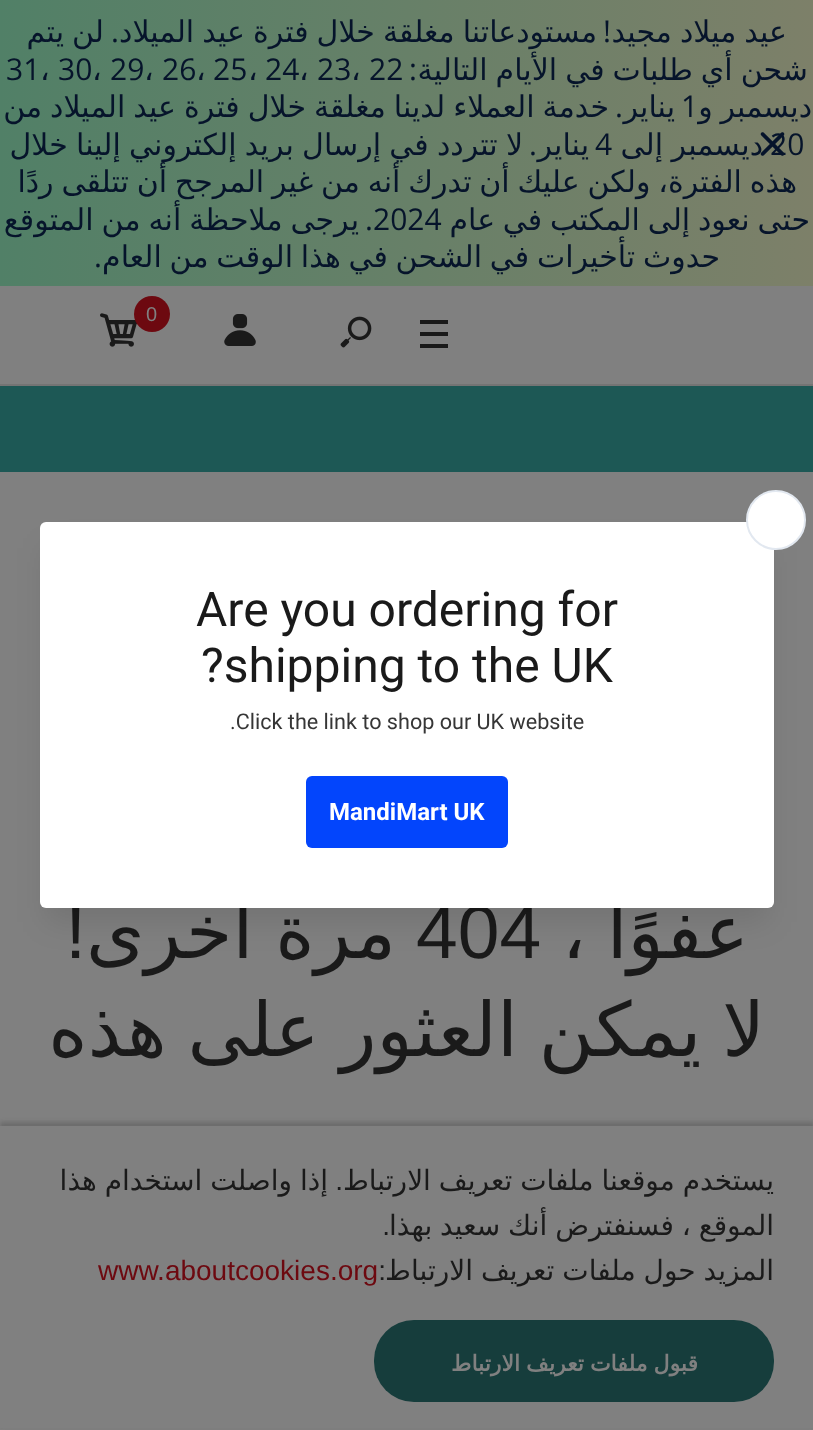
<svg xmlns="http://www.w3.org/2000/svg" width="813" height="1430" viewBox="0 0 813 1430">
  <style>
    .t1 { font: 30px DejaVu Sans; direction: rtl; fill: #06142b; }
    .t2 { font: 30px Open Sans; direction: rtl; fill: #06142b; }
    .t3 { font: 30px Open Sans; fill: #06142b; }
    .t4 { font: 30px DejaVu Sans; fill: #06142b; }
    .t5 { font: 20px Liberation Sans; fill: #808080; }
    .t6 { font: 75px DejaVu Sans; direction: rtl; fill: #1a1a1a; }
    .t7 { font: 75px Liberation Sans; fill: #1a1a1a; }
    .t8 { font: 75px Liberation Sans; direction: rtl; fill: #1a1a1a; }
    .t9 { font: 48px Roboto; fill: #1a1a1a; }
    .t10 { font: 21.6px Roboto; fill: #363636; }
    .t11 { font: bold 24px Roboto; fill: #fff; }
    .t12 { font: 28px DejaVu Sans; direction: rtl; fill: #1a1a1a; }
    .t13 { font: 28px Liberation Sans; direction: rtl; fill: #1a1a1a; }
    .t14 { font: 28px Liberation Sans; fill: #6d0910; }
    .t15 { font: bold 22px DejaVu Sans; direction: rtl; fill: #808080; }
  </style>
  <defs>
    <linearGradient id="g1" gradientUnits="userSpaceOnUse" x1="0" y1="143" x2="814" y2="143"><stop offset="0" stop-color="#518067"/><stop offset="1" stop-color="#7d8069"/></linearGradient>
  </defs>
  <rect width="100%" height="100%" fill="#808080"/>
  <rect x="0" y="0" width="813" height="286" fill="url(#g1)"/>
  <text x="787" y="42" word-spacing="-1.5" class="t1">عيد ميلاد مجيد</text>
  <text x="611" y="42" class="t2">!</text>
  <text x="597" y="42" word-spacing="-1.5" class="t1">مستودعاتنا مغلقة خلال فترة عيد الميلاد</text>
  <text x="119" y="42" class="t2">.</text>
  <text x="104" y="42" word-spacing="-1.5" class="t1">لن يتم</text>
  <text x="808" y="80" word-spacing="-1.5" class="t1">شحن أي طلبات في الأيام التالية</text>
  <text x="417" y="80" class="t2">:</text>
  <text x="369" y="80" class="t3">22</text>
  <text x="351" y="80" class="t4">،</text>
  <text x="317" y="80" class="t3">23</text>
  <text x="299" y="80" class="t4">،</text>
  <text x="265" y="80" class="t3">24</text>
  <text x="248" y="80" class="t4">،</text>
  <text x="213" y="80" class="t3">25</text>
  <text x="196" y="80" class="t4">،</text>
  <text x="162" y="80" class="t3">26</text>
  <text x="144" y="80" class="t4">،</text>
  <text x="110" y="80" class="t3">29</text>
  <text x="92" y="80" class="t4">،</text>
  <text x="58" y="80" class="t3">30</text>
  <text x="40" y="80" class="t4">،</text>
  <text x="6" y="80" class="t3">31</text>
  <text x="812" y="117" word-spacing="-1.75" class="t1">ديسمبر و</text>
  <text x="681" y="117" class="t3">1</text>
  <text x="675" y="117" class="t1">يناير</text>
  <text x="623" y="117" class="t2">.</text>
  <text x="609" y="117" word-spacing="-1.5" class="t1">خدمة العملاء لدينا مغلقة خلال فترة عيد الميلاد من</text>
  <text x="770" y="155" class="t3">20</text>
  <text x="763" y="155" word-spacing="-1" class="t1">ديسمبر إلى</text>
  <text x="595" y="155" class="t3">4</text>
  <text x="589" y="155" class="t1">يناير</text>
  <text x="537" y="155" class="t2">.</text>
  <text x="523" y="155" word-spacing="-1.25" class="t1">لا تتردد في إرسال بريد إلكتروني إلينا خلال</text>
  <text x="797" y="192" word-spacing="-1.75" class="t1">هذه الفترة، ولكن عليك أن تدرك أنه من غير المرجح أن تتلقى ردًا</text>
  <text x="810" y="230" word-spacing="-1.75" class="t1">حتى نعود إلى المكتب في عام</text>
  <text x="373" y="230" class="t3">2024</text>
  <text x="373" y="230" class="t2">.</text>
  <text x="359" y="230" word-spacing="-1.5" class="t1">يرجى ملاحظة أنه من المتوقع</text>
  <text x="720" y="267" word-spacing="-1.75" class="t1">حدوث تأخيرات في الشحن في هذا الوقت من العام</text>
  <text x="102" y="267" class="t2">.</text>
  <image x="760" y="132" width="25" height="24" href="images/1.png"/>
  <rect x="0" y="384" width="813" height="2" fill="#747474"/>
  <rect x="420" y="332" width="28" height="4" fill="#1a1a1a"/>
  <rect x="420" y="320" width="28" height="4" fill="#1a1a1a"/>
  <rect x="420" y="344" width="28" height="4" fill="#1a1a1a"/>
  <image x="340" y="316" width="32" height="32" href="images/2.png"/>
  <image x="224" y="314" width="32" height="32" href="images/3.png"/>
  <image x="100" y="313" width="37" height="34" href="images/4.png"/>
  <circle cx="152" cy="314" r="18" fill="#6d0910"/>
  <text x="146" y="321" class="t5">0</text>
  <rect x="0" y="386" width="813" height="86" fill="#1d5855"/>
  <text x="749" y="958" word-spacing="-3" class="t6">عفوًا ،</text>
  <text x="416" y="958" class="t7">404</text>
  <text x="396" y="958" word-spacing="-2" class="t6">مرة أخرى</text>
  <text x="86" y="958" class="t8">!</text>
  <text x="765" y="1056" word-spacing="-3" class="t6">لا يمكن العثور على هذه</text>
  <rect x="46" y="548" width="722" height="374" fill="#0000001a" filter="blur(15px)"/>
  <rect x="40" y="522" width="734" height="386" rx="6" fill="#fff"/>
  <circle cx="776" cy="520" r="29" fill="#fff" stroke="#e2e8f0" stroke-width="2"/>
  <text x="196" y="626" class="t9">Are you ordering for</text>
  <text x="201" y="682" class="t9">?shipping to the UK</text>
  <text x="230" y="729" class="t10">.Click the link to shop our UK website</text>
  <rect x="306" y="776" width="202" height="72" rx="6" fill="#0345fc"/>
  <text x="329" y="820" class="t11">MandiMart UK</text>
  <rect x="0" y="1122" width="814" height="304" fill="#19191933" filter="blur(2px)"/>
  <rect x="0" y="1126" width="813" height="302" fill="#808080"/>
  <text x="774" y="1190" word-spacing="-1" class="t12">يستخدم موقعنا ملفات تعريف الارتباط</text>
  <text x="343" y="1190" class="t13">.</text>
  <text x="328" y="1190" word-spacing="-1" class="t12">إذا واصلت استخدام هذا</text>
  <text x="774" y="1235" word-spacing="-1" class="t12">الموقع ، فسنفترض أنك سعيد بهذا</text>
  <text x="390" y="1235" class="t13">.</text>
  <text x="774" y="1280" word-spacing="-1" class="t12">المزيد حول ملفات تعريف الارتباط</text>
  <text x="386" y="1280" class="t13">:</text>
  <text x="98" y="1280" class="t14">www.aboutcookies.org</text>
  <rect x="374" y="1320" width="400" height="82" rx="40" fill="#163d3c"/>
  <text x="698" y="1371" word-spacing="-1" class="t15">قبول ملفات تعريف الارتباط</text>
</svg>
